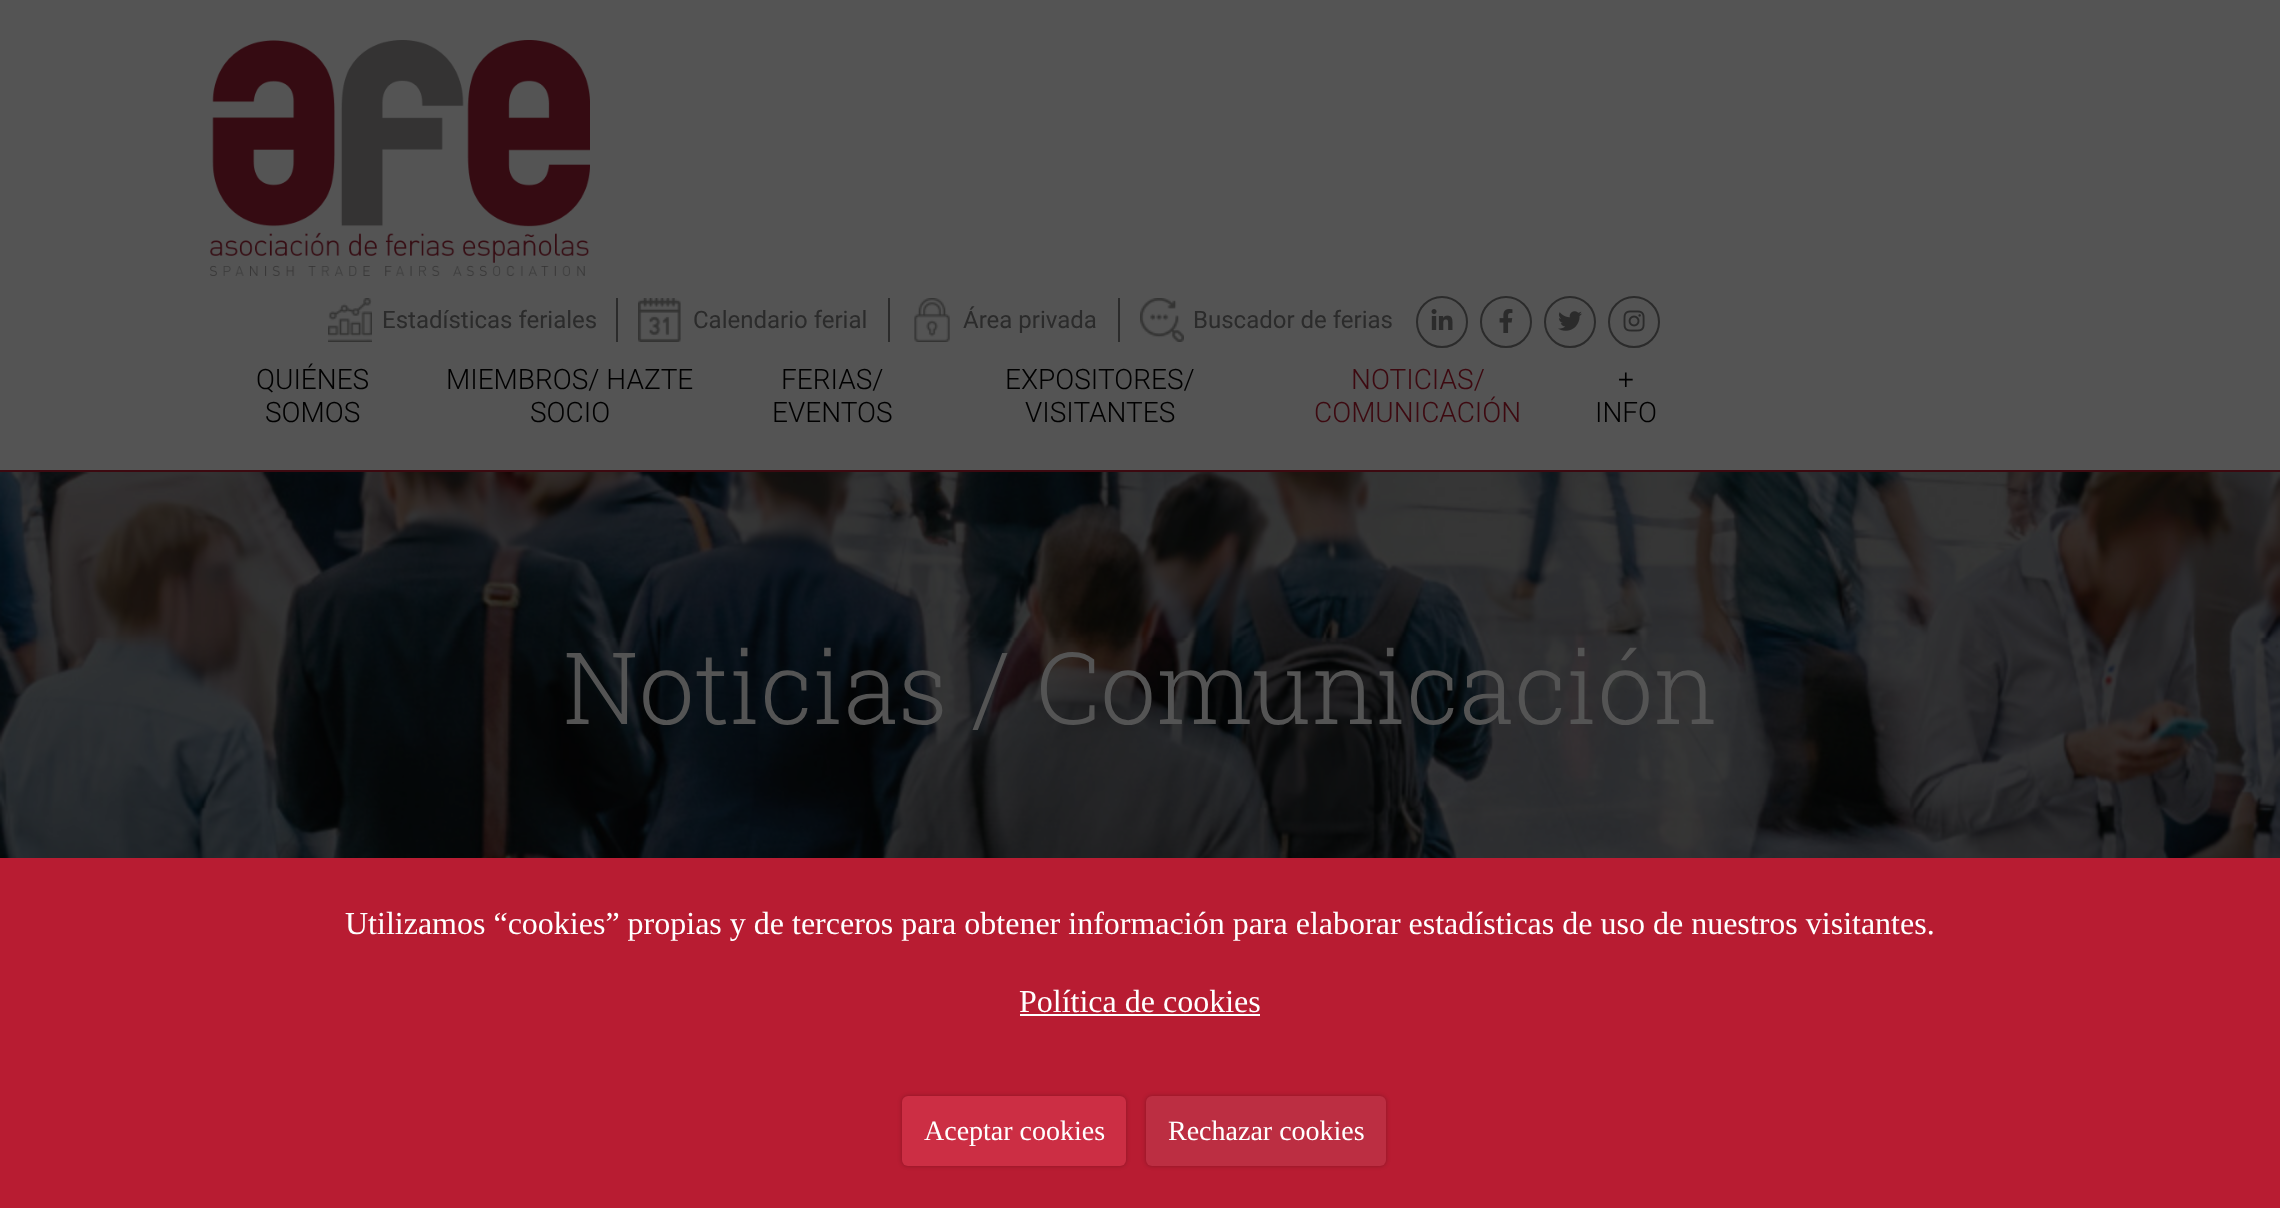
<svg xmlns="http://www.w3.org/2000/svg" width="2280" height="1208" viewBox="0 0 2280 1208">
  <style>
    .t1 { font: 24px Roboto; fill: #2b2b2b; }
    .t2 { font: 300 28px Roboto; fill: #000; }
    .t3 { font: 300 28px Roboto; fill: #3d0910; }
    .t4 { font: 300 100px Roboto Slab; fill: #545454; }
    .t5 { font: 32px Liberation Serif; fill: #fff; }
    .t6 { font: 28px Liberation Serif; fill: #fff; }
  </style>
  <rect width="100%" height="100%" fill="#545454"/>
  <rect x="0" y="470" width="2280" height="2" fill="#3d0910"/>
  <image x="210" y="40" width="380" height="236" href="images/1.png"/>
  <image x="328" y="298" width="44" height="44" href="images/2.png"/>
  <text x="382" y="328" class="t1">Estadísticas feriales</text>
  <rect x="616" y="298" width="2" height="44" fill="#2b2b2b"/>
  <image x="638" y="298" width="43" height="44" href="images/3.png"/>
  <text x="693" y="328" class="t1">Calendario ferial</text>
  <rect x="888" y="298" width="2" height="44" fill="#2b2b2b"/>
  <image x="914" y="298" width="36" height="44" href="images/4.png"/>
  <text x="963" y="328" class="t1">Área privada</text>
  <rect x="1118" y="298" width="2" height="44" fill="#2b2b2b"/>
  <image x="1140" y="298" width="44" height="44" href="images/5.png"/>
  <text x="1193" y="328" class="t1">Buscador de ferias</text>
  <circle cx="1442" cy="322" r="25" fill="none" stroke="#2b2b2b" stroke-width="2"/>
  <image x="1431" y="309" width="22" height="21" href="images/6.png"/>
  <circle cx="1506" cy="322" r="25" fill="none" stroke="#2b2b2b" stroke-width="2"/>
  <image x="1499" y="309" width="14" height="24" href="images/7.png"/>
  <circle cx="1570" cy="322" r="25" fill="none" stroke="#2b2b2b" stroke-width="2"/>
  <image x="1558" y="311" width="24" height="20" href="images/8.png"/>
  <circle cx="1634" cy="322" r="25" fill="none" stroke="#2b2b2b" stroke-width="2"/>
  <image x="1623" y="310" width="22" height="22" href="images/9.png"/>
  <text x="256" y="389" class="t2">QUIÉNES</text>
  <text x="265" y="422" class="t2">SOMOS</text>
  <text x="446" y="389" class="t2">MIEMBROS/ HAZTE</text>
  <text x="530" y="422" class="t2">SOCIO</text>
  <text x="781" y="389" class="t2">FERIAS/</text>
  <text x="772" y="422" class="t2">EVENTOS</text>
  <text x="1005" y="389" class="t2">EXPOSITORES/</text>
  <text x="1025" y="422" class="t2">VISITANTES</text>
  <text x="1351" y="389" class="t3">NOTICIAS/</text>
  <text x="1314" y="422" class="t3">COMUNICACIÓN</text>
  <text x="1618" y="389" class="t2">+</text>
  <text x="1595" y="422" class="t2">INFO</text>
  <image x="0" y="472" width="2280" height="386" href="images/10.png"/>
  <text x="563" y="724" class="t4">Noticias / Comunicación</text>
  <rect x="0" y="858" width="2280" height="350" fill="#b81c32"/>
  <text x="345" y="934" class="t5">Utilizamos “cookies” propias y de terceros para obtener información para elaborar estadísticas de uso de nuestros visitantes.</text>
  <text x="1019" y="1012" class="t5">Política de cookies</text>
  <rect x="1020" y="1014" width="240" height="2" fill="#fff"/>
  <rect x="902" y="1096" width="224" height="70" rx="6" fill="#00000040" filter="blur(2px)"/>
  <rect x="902" y="1096" width="224" height="70" rx="6" fill="#cc2e44"/>
  <text x="924" y="1140" class="t6">Aceptar cookies</text>
  <rect x="1146" y="1096" width="240" height="70" rx="6" fill="#00000040" filter="blur(2px)"/>
  <rect x="1146" y="1096" width="240" height="70" rx="6" fill="#bc2e42"/>
  <text x="1168" y="1140" class="t6">Rechazar cookies</text>
</svg>
